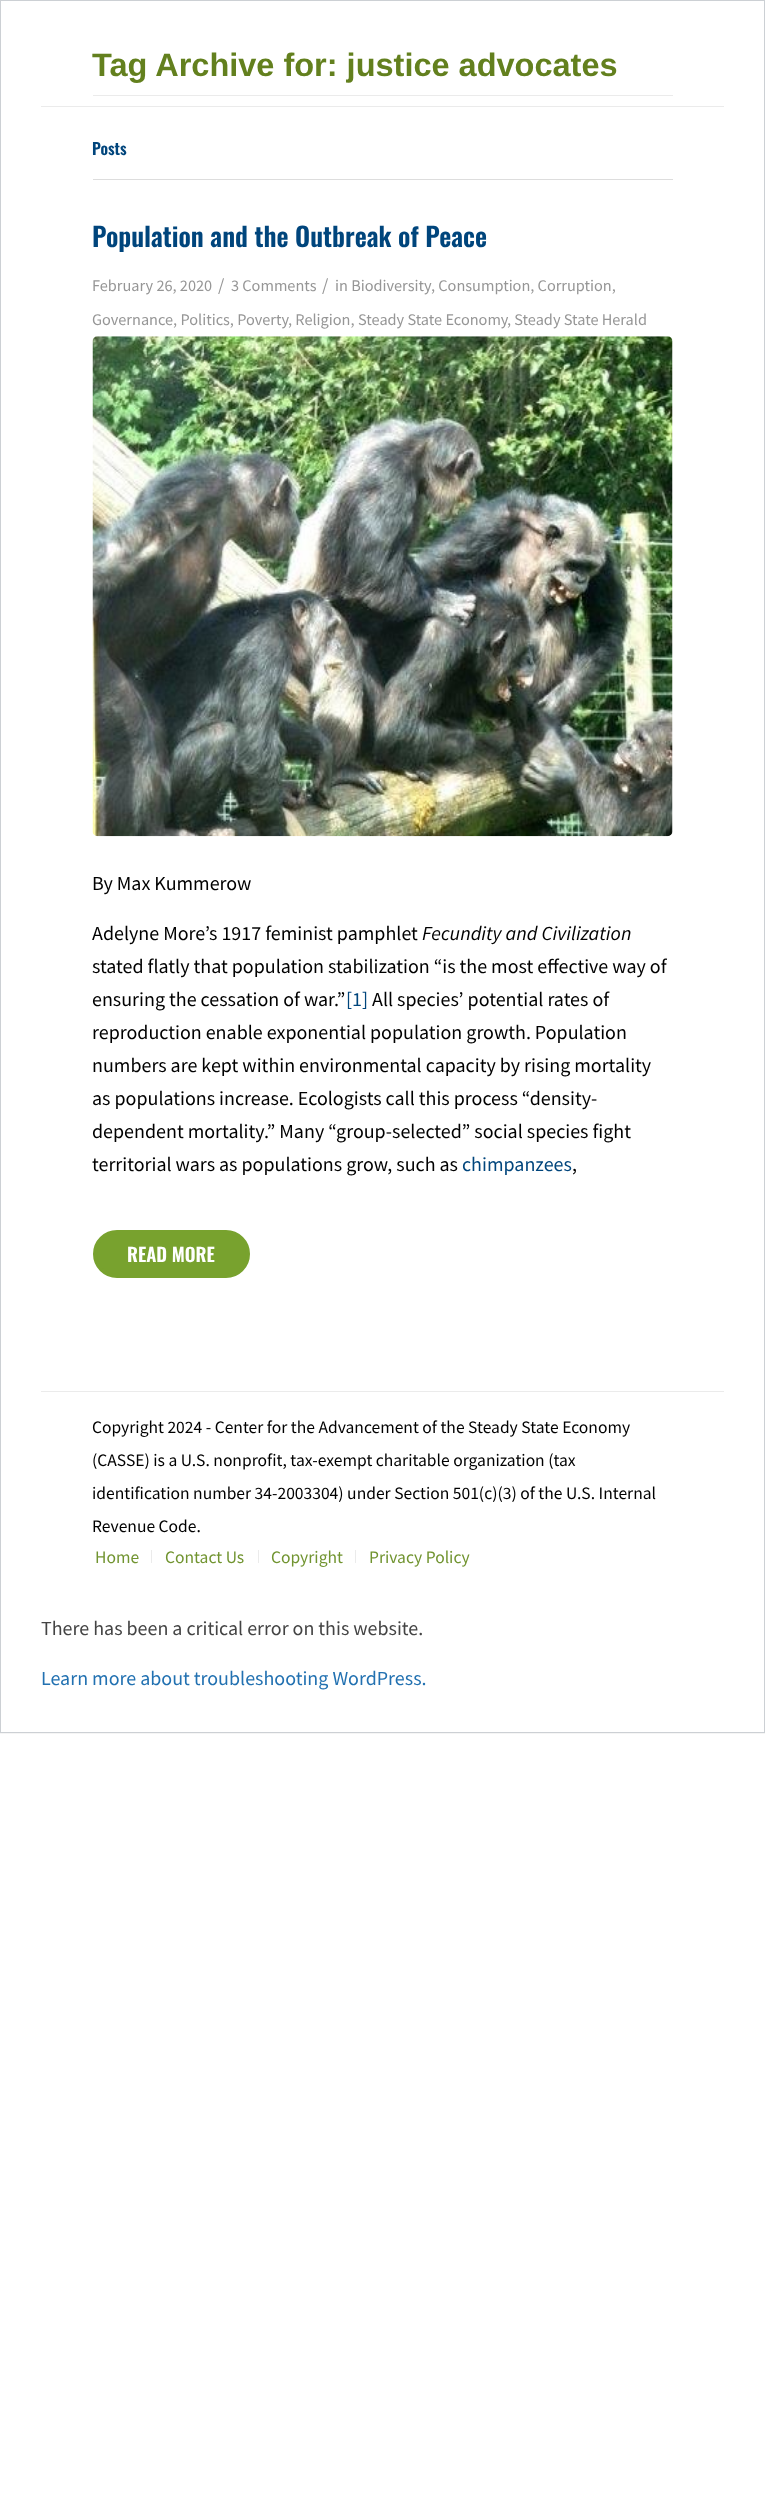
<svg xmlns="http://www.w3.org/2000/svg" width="765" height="2493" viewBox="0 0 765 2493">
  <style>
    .t1 { font: bold 32.5px Liberation Sans; fill: #63801e; }
    .t2 { font: 600 16px Oswald; fill: #00457c; }
    .t3 { font: 600 26.25px Oswald; fill: #00457c; }
    .t4 { font: 16.25px Source Sans Pro; fill: #969696; }
    .t5 { font: 18px Source Sans Pro; fill: #969696; }
    .t6 { font: 20px Source Sans Pro; fill: #000; }
    .t7 { font: italic 20px Source Sans Pro; fill: #000; }
    .t8 { font: 20px Source Sans Pro; fill: #00457c; }
    .t9 { font: 600 18.75px Oswald; fill: #fff; }
    .t10 { font: 17.5px Source Sans Pro; fill: #000; }
    .t11 { font: 17.5px Source Sans Pro; fill: #719430; }
    .t12 { font: 20px Source Sans Pro; fill: #444; }
    .t13 { font: 20px Source Sans Pro; fill: #2271b1; }
  </style>
  <rect width="100%" height="100%" fill="#fff"/>
  <rect x="0" y="1" width="765" height="1733" fill="#0000000a" filter="blur(0.5px)"/>
  <rect x="0.5" y="0.5" width="764" height="1732" fill="#fff" stroke="#ccd0d4"/>
  <rect x="93" y="95" width="580" height="1" fill="#ebebeb"/>
  <text x="92" y="76" class="t1">Tag Archive for: justice advocates</text>
  <rect x="41" y="106" width="683" height="1" fill="#ebebeb"/>
  <text x="92" y="155" class="t2">Posts</text>
  <rect x="93" y="179" width="580" height="1" fill="#ddd"/>
  <text x="92" y="247" class="t3">Population and the Outbreak of Peace</text>
  <text x="92" y="291" class="t4">February 26, 2020</text>
  <text x="218" y="291" class="t5">/</text>
  <text x="231" y="291" class="t4">3 Comments</text>
  <text x="322" y="291" class="t5">/</text>
  <text x="335" y="291" class="t4">in Biodiversity</text>
  <text x="431" y="291" class="t4">, Consumption, Corruption,</text>
  <text x="92" y="325" class="t4">Governance, Politics, Poverty</text>
  <text x="288" y="325" class="t4">, Religion,</text>
  <text x="358" y="325" class="t4">Steady State Economy</text>
  <text x="507" y="325" class="t4">, Steady State Herald</text>
  <image x="92" y="336" width="581" height="501" href="images/1.png"/>
  <text x="92" y="890" class="t6">By Max Kummerow</text>
  <text x="92" y="940" class="t6">Adelyne More’s 1917 feminist pamphlet</text>
  <text x="422" y="940" class="t7">Fecundity and Civilization</text>
  <text x="92" y="973" class="t6">stated flatly that population stabilization “is the most effective way of</text>
  <text x="92" y="1006" class="t6">ensuring the cessation of war.”</text>
  <text x="346" y="1006" class="t8">[1]</text>
  <text x="372" y="1006" class="t6">All species’ potential rates of</text>
  <text x="92" y="1039" class="t6">reproduction enable exponential population growth. Population</text>
  <text x="92" y="1072" class="t6">numbers are kept within environmental capacity by rising mortality</text>
  <text x="92" y="1105" class="t6">as populations increase. Ecologists call this process “density-</text>
  <text x="92" y="1138" class="t6">dependent mortality.” Many “group-selected” social species fight</text>
  <text x="92" y="1171" class="t6">territorial wars as populations grow, such as</text>
  <text x="462" y="1171" class="t8">chimpanzees</text>
  <text x="572" y="1171" class="t6">,</text>
  <rect x="95" y="1232" width="153" height="44" rx="22" fill="#78a22e" stroke="#78a22e" stroke-width="4"/>
  <text x="127" y="1262" class="t9">READ MORE</text>
  <rect x="41" y="1391" width="683" height="1" fill="#ebebeb"/>
  <text x="92" y="1433" class="t10">Copyright 2024 - Center for the Advancement of the Steady State Economy</text>
  <text x="92" y="1466" class="t10">(CASSE) is a U.S. nonprofit, tax-exempt charitable organization (tax</text>
  <text x="92" y="1499" class="t10">identification number 34-2003304) under Section 501(c)(3) of the U.S. Internal</text>
  <text x="92" y="1532" class="t10">Revenue Code.</text>
  <text x="95" y="1563" class="t11">Home</text>
  <rect x="151" y="1550" width="1" height="13" fill="#ebebeb"/>
  <text x="165" y="1563" class="t11">Contact Us</text>
  <rect x="258" y="1550" width="1" height="13" fill="#ebebeb"/>
  <text x="271" y="1563" class="t11">Copyright</text>
  <rect x="355" y="1550" width="1" height="13" fill="#ebebeb"/>
  <text x="369" y="1563" class="t11">Privacy Policy</text>
  <text x="41" y="1635" class="t12">There has been a critical error on this website.</text>
  <text x="41" y="1685" class="t13">Learn more about troubleshooting WordPress.</text>
</svg>
